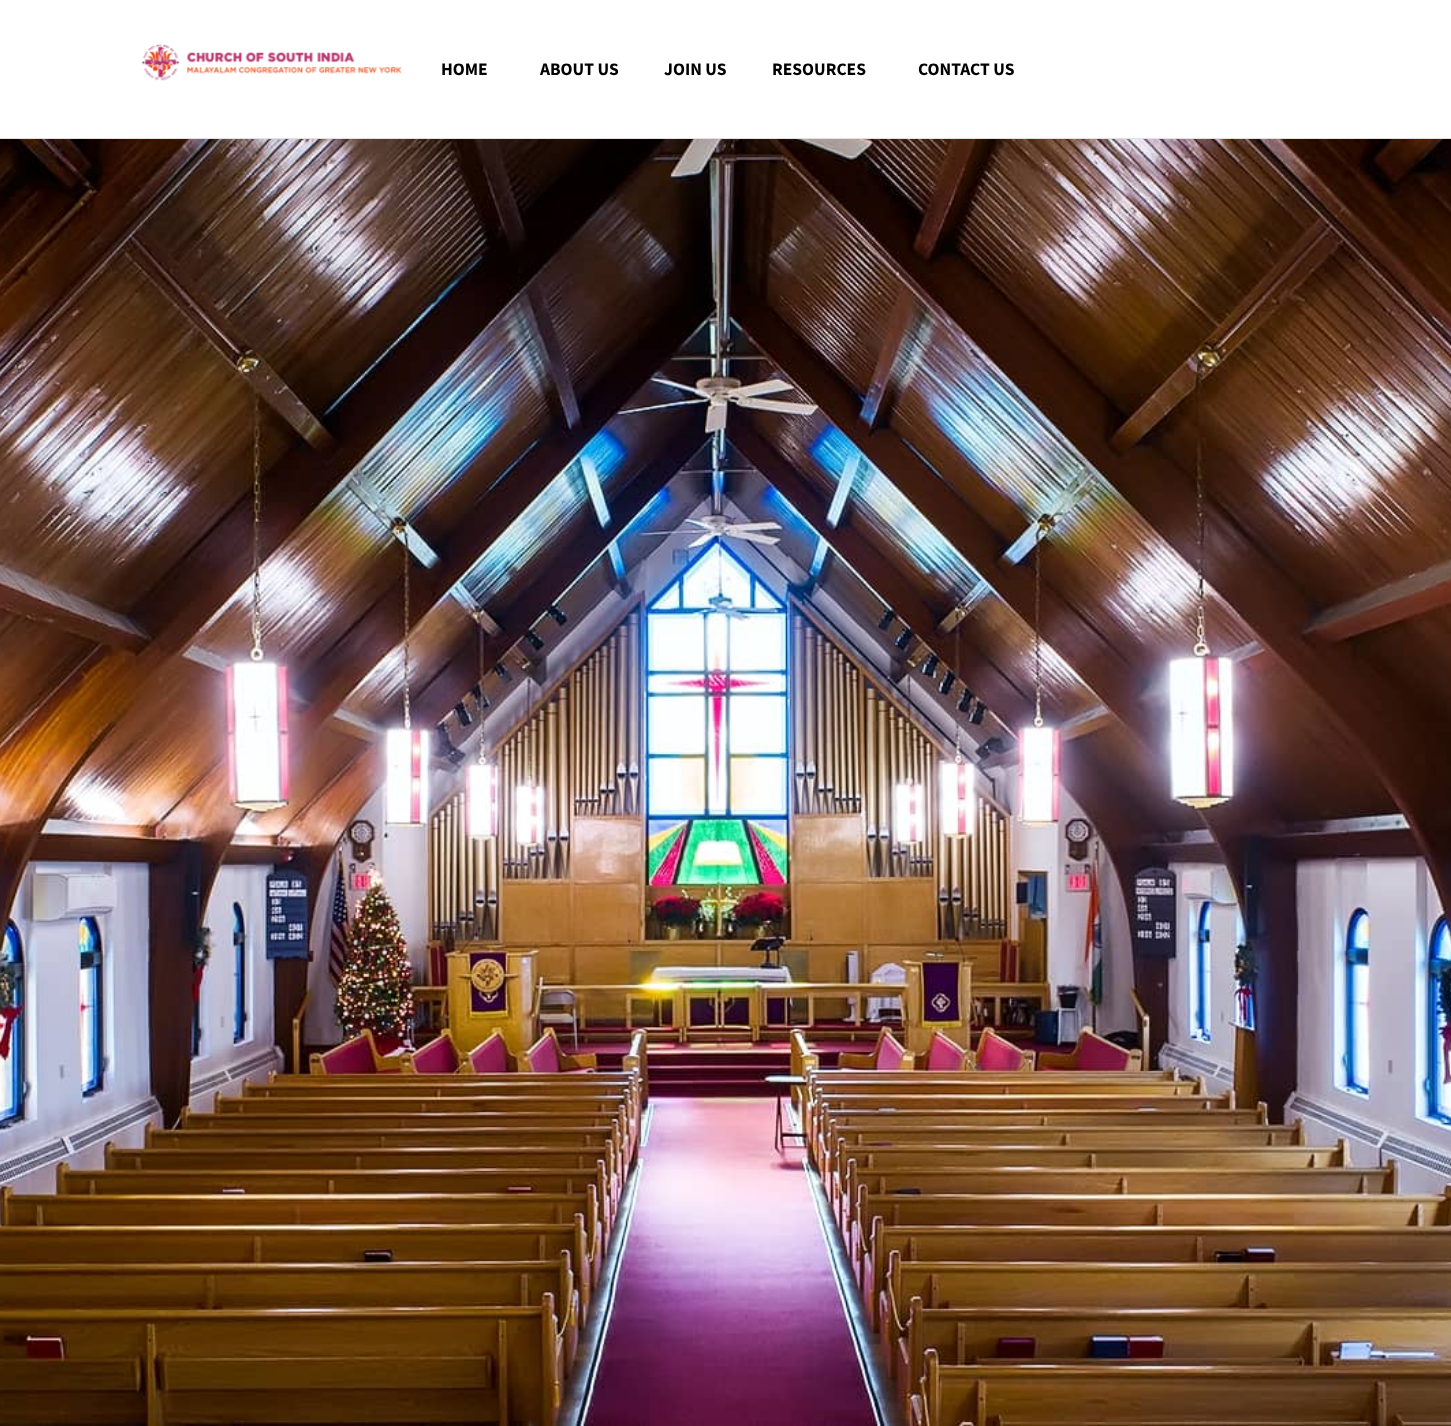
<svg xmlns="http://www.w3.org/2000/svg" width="1451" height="1426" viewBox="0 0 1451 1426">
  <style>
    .t1 { font: bold 17.5px Source Sans Pro; fill: #000; }
  </style>
  <rect width="100%" height="100%" fill="#fff"/>
  <rect x="0" y="138" width="1451" height="1" fill="#e1e1e1"/>
  <image x="141" y="44" width="261" height="37" href="images/1.png"/>
  <text x="441" y="75" class="t1">HOME</text>
  <text x="540" y="75" class="t1">ABOUT US</text>
  <text x="664" y="75" class="t1">JOIN US</text>
  <text x="772" y="75" class="t1">RESOURCES</text>
  <text x="918" y="75" class="t1">CONTACT US</text>
  <image x="0" y="139" width="1451" height="1287" href="images/2.png"/>
</svg>
